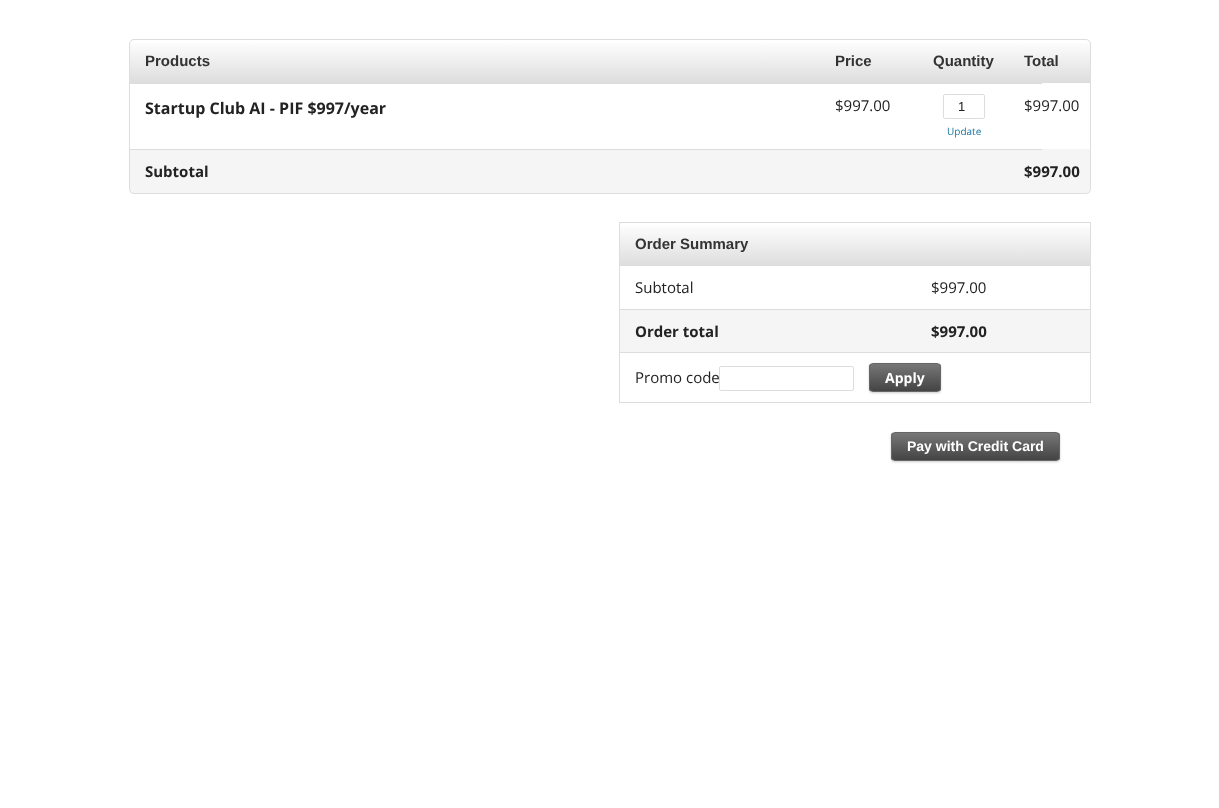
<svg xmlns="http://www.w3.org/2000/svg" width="1219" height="808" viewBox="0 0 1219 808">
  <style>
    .t1 { font: bold 15px Liberation Sans; fill: #333; }
    .t2 { font: bold 16px Open Sans; fill: #222; }
    .t3 { font: 15px Open Sans; fill: #222; }
    .t4 { font: 13px Liberation Sans; fill: #222; }
    .t5 { font: 10px Open Sans; fill: #1675a2; }
    .t6 { font: bold 15px Open Sans; fill: #222; }
    .t7 { font: bold 14px Open Sans; fill: #fff; }
    .t8 { font: bold 14px Liberation Sans; fill: #fff; }
  </style>
  <defs>
    <linearGradient id="g1" gradientUnits="userSpaceOnUse" x1="400" y1="40" x2="400" y2="83"><stop offset="0" stop-color="#fff"/><stop offset="1" stop-color="#ddd"/></linearGradient>
    <linearGradient id="g2" gradientUnits="userSpaceOnUse" x1="745" y1="40" x2="745" y2="83"><stop offset="0" stop-color="#fff"/><stop offset="1" stop-color="#ddd"/></linearGradient>
    <linearGradient id="g3" gradientUnits="userSpaceOnUse" x1="867" y1="40" x2="867" y2="83"><stop offset="0" stop-color="#fff"/><stop offset="1" stop-color="#ddd"/></linearGradient>
    <linearGradient id="g4" gradientUnits="userSpaceOnUse" x1="962" y1="40" x2="962" y2="83"><stop offset="0" stop-color="#fff"/><stop offset="1" stop-color="#ddd"/></linearGradient>
    <linearGradient id="g5" gradientUnits="userSpaceOnUse" x1="1050" y1="40" x2="1050" y2="83"><stop offset="0" stop-color="#fff"/><stop offset="1" stop-color="#ddd"/></linearGradient>
    <linearGradient id="g6" gradientUnits="userSpaceOnUse" x1="768" y1="223" x2="768" y2="266"><stop offset="0" stop-color="#fff"/><stop offset="1" stop-color="#ddd"/></linearGradient>
    <linearGradient id="g7" gradientUnits="userSpaceOnUse" x1="1003" y1="223" x2="1003" y2="266"><stop offset="0" stop-color="#fff"/><stop offset="1" stop-color="#ddd"/></linearGradient>
    <clipPath id="clip1"><rect x="869" y="363" width="72" height="29" rx="4"/></clipPath>
    <linearGradient id="g8" gradientUnits="userSpaceOnUse" x1="905" y1="364" x2="905" y2="391"><stop offset="0" stop-color="#777"/><stop offset="1" stop-color="#444"/></linearGradient>
    <clipPath id="clip2"><rect x="891" y="432" width="169" height="29" rx="4"/></clipPath>
    <linearGradient id="g9" gradientUnits="userSpaceOnUse" x1="976" y1="433" x2="976" y2="460"><stop offset="0" stop-color="#777"/><stop offset="1" stop-color="#444"/></linearGradient>
  </defs>
  <rect width="100%" height="100%" fill="#fff"/>
  <rect x="130" y="43" width="540" height="40" fill="url(#g1)"/>
  <rect x="670" y="43" width="150" height="40" fill="url(#g2)"/>
  <rect x="820" y="43" width="94" height="40" fill="url(#g3)"/>
  <rect x="914" y="43" width="95" height="40" fill="url(#g4)"/>
  <rect x="1009" y="43" width="81" height="40" fill="url(#g5)"/>
  <rect x="943.5" y="94.5" width="41" height="24" rx="1.5" fill="none" stroke="#ddd"/>
  <rect x="129" y="83" width="913" height="1" fill="#ddd"/>
  <rect x="130" y="149" width="960" height="44" fill="#f5f5f5"/>
  <rect x="129" y="149" width="913" height="1" fill="#ddd"/>
  <rect x="129.5" y="39.5" width="961" height="154" rx="4.5" fill="none" stroke="#ddd"/>
  <text x="145" y="66" class="t1">Products</text>
  <text x="835" y="66" class="t1">Price</text>
  <text x="933" y="66" class="t1">Quantity</text>
  <text x="1024" y="66" class="t1">Total</text>
  <text x="145" y="114" class="t2">Startup Club AI - PIF $997/year</text>
  <text x="835" y="111" class="t3">$997.00</text>
  <text x="958" y="111" class="t4">1</text>
  <text x="947" y="135" class="t5">Update</text>
  <text x="1024" y="111" class="t3">$997.00</text>
  <text x="145" y="177" class="t6">Subtotal</text>
  <text x="1024" y="177" class="t6">$997.00</text>
  <rect x="620" y="226" width="296" height="39" fill="url(#g6)"/>
  <rect x="916" y="226" width="174" height="40" fill="url(#g7)"/>
  <rect x="619" y="265" width="298" height="1" fill="#ddd"/>
  <rect x="620" y="310" width="470" height="42" fill="#f5f5f5"/>
  <rect x="619" y="309" width="471" height="1" fill="#ddd"/>
  <rect x="619" y="352" width="471" height="1" fill="#ddd"/>
  <rect x="719.5" y="366.5" width="134" height="24" rx="1.5" fill="none" stroke="#ddd"/>
  <rect x="869" y="364" width="72" height="29" rx="4" fill="#00000033" filter="blur(1px)"/>
  <g clip-path="url(#clip1)">
    <rect x="869" y="364" width="72" height="27" fill="url(#g8)"/>
  </g>
  <rect x="869.5" y="363.5" width="71" height="28" rx="3.5" fill="none" stroke="#666"/>
  <rect x="619.5" y="222.5" width="471" height="180" fill="none" stroke="#ddd"/>
  <text x="635" y="249" class="t1">Order Summary</text>
  <text x="635" y="293" class="t3">Subtotal</text>
  <text x="931" y="293" class="t3">$997.00</text>
  <text x="635" y="337" class="t6">Order total</text>
  <text x="931" y="337" class="t6">$997.00</text>
  <text x="635" y="383" class="t3">Promo code</text>
  <text x="885" y="383" class="t7">Apply</text>
  <rect x="891" y="433" width="169" height="29" rx="4" fill="#00000033" filter="blur(1px)"/>
  <g clip-path="url(#clip2)">
    <rect x="891" y="433" width="169" height="27" fill="url(#g9)"/>
  </g>
  <rect x="891.5" y="432.5" width="168" height="28" rx="3.5" fill="none" stroke="#666"/>
  <text x="907" y="451" class="t8">Pay with Credit Card</text>
</svg>
